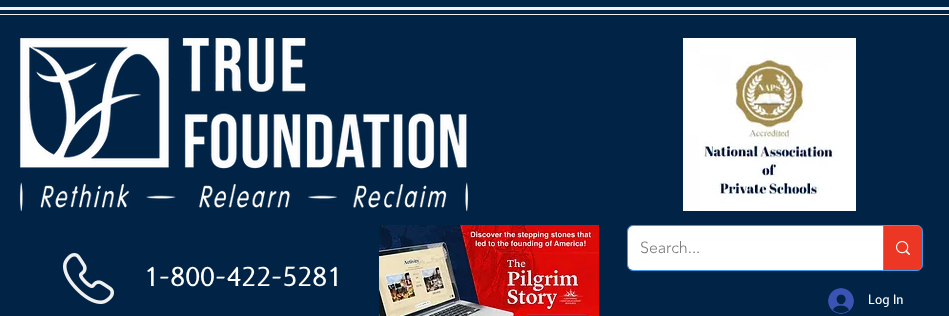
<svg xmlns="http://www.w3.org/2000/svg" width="949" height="316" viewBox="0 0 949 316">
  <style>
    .t1 { font: 300 16px 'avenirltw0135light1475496'; fill: #787878; }
    .t2 { font: 30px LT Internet; fill: #fff; }
    .t3 { font: 15px LT Internet; fill: #fff; }
  </style>
  <rect width="100%" height="100%" fill="#002346"/>
  <rect x="0" y="7" width="949" height="3" fill="#f0f0f0"/>
  <rect x="0" y="14" width="949" height="1" fill="#f0f0f0"/>
  <image x="19" y="38" width="450" height="173" href="images/1.png"/>
  <image x="683" y="38" width="173" height="173" href="images/2.png"/>
  <image x="379" y="225" width="220" height="91" href="images/3.png"/>
  <rect x="627.5" y="225.5" width="295" height="45" rx="5.5" fill="none" stroke="#3d9be9"/>
  <rect x="628" y="226" width="294" height="44" rx="5" fill="#fff"/>
  <text x="640" y="253" class="t1">Search...</text>
  <path d="M883 226H917C920 226 922 228 922 231V265C922 268 920 270 917 270H883Z" fill="#eb3723"/>
  <rect x="883" y="226" width="1" height="44" fill="#3d9be9"/>
  <image x="896" y="241" width="14" height="14" href="images/4.png"/>
  <image x="63" y="253" width="51" height="51" href="images/5.png"/>
  <text x="144" y="286" class="t2">1-800-422-5281</text>
  <image x="828" y="288" width="26" height="26" href="images/6.png"/>
  <text x="868" y="304" class="t3">Log In</text>
</svg>
